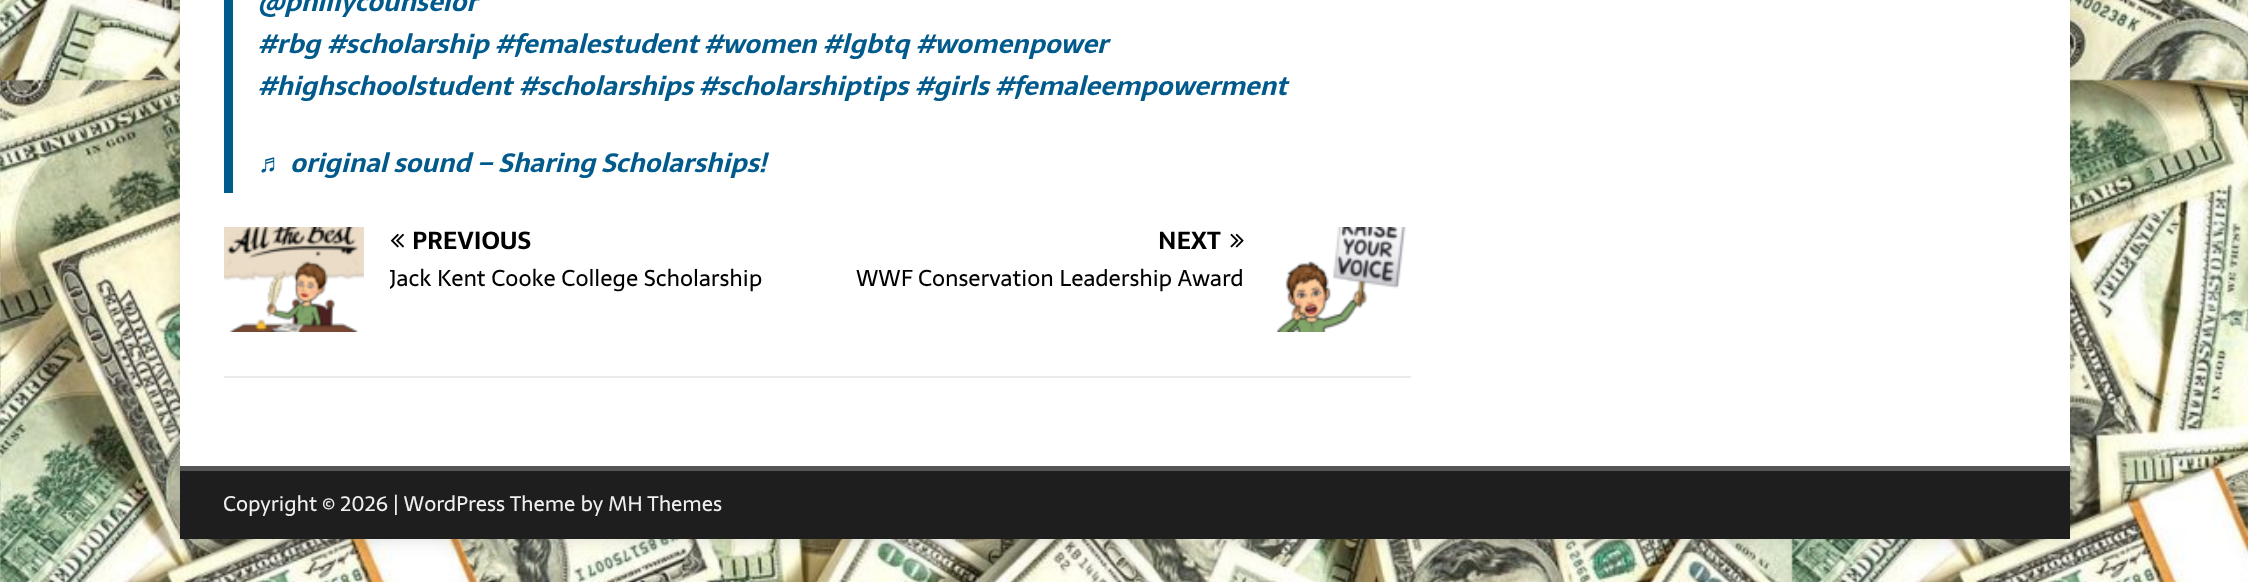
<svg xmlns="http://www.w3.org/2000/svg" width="2248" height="582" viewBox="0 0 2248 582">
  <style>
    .t1 { font: italic bold 26.25px Sarala; fill: #005a8c; }
    .t2 { font: italic bold 26.25px Liberation Sans; fill: #005a8c; }
    .t3 { font: bold 24.5px Sarala; fill: #000; }
    .t4 { font: 22.75px Sarala; fill: #000; }
    .t5 { font: 21px Sarala; fill: #efefef; }
  </style>
  <defs>
    <clipPath id="clip1"><rect x="390" y="261" width="412" height="37"/></clipPath>
  </defs>
  <rect width="100%" height="100%" fill="#fff"/>
  <image x="0" y="0" width="2248" height="582" href="images/1.png"/>
  <rect x="180" y="-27" width="1890" height="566" fill="#3232322b" filter="blur(9px)"/>
  <rect x="180" y="0" width="1890" height="466" fill="#fff"/>
  <rect x="224" y="0" width="9" height="193" fill="#005a8c"/>
  <text x="258" y="11" class="t1">@phillycounselor</text>
  <text x="258" y="53" class="t1">#rbg</text>
  <text x="327" y="53" class="t1">#scholarship</text>
  <text x="495" y="53" class="t1">#femalestudent</text>
  <text x="704" y="53" class="t1">#women</text>
  <text x="823" y="53" class="t1">#lgbtq</text>
  <text x="916" y="53" class="t1">#womenpower</text>
  <text x="258" y="95" class="t1">#highschoolstudent</text>
  <text x="519" y="95" class="t1">#scholarships</text>
  <text x="699" y="95" class="t1">#scholarshiptips</text>
  <text x="915" y="95" class="t1">#girls</text>
  <text x="995" y="95" class="t1">#femaleempowerment</text>
  <text x="258" y="172" class="t2">♬</text>
  <text x="290" y="172" class="t1">original sound – Sharing Scholarships!</text>
  <rect x="224" y="376" width="1187" height="2" fill="#ebebeb"/>
  <image x="224" y="227" width="140" height="105" href="images/2.png"/>
  <image x="390" y="233" width="14" height="15" href="images/3.png"/>
  <text x="412" y="249" class="t3">PREVIOUS</text>
  <g clip-path="url(#clip1)">
    <text x="389" y="286" class="t4">Jack Kent Cooke College Scholarship</text>
  </g>
  <text x="1158" y="249" class="t3">NEXT</text>
  <image x="1230" y="233" width="14" height="15" href="images/4.png"/>
  <image x="1276" y="227" width="130" height="105" href="images/5.png"/>
  <text x="856" y="286" class="t4">WWF Conservation Leadership Award</text>
  <rect x="180" y="471" width="1890" height="68" fill="#1f1e1e"/>
  <rect x="180" y="466" width="1890" height="5" fill="#555"/>
  <text x="223" y="511" class="t5">Copyright © 2026 | WordPress Theme by MH Themes</text>
</svg>
